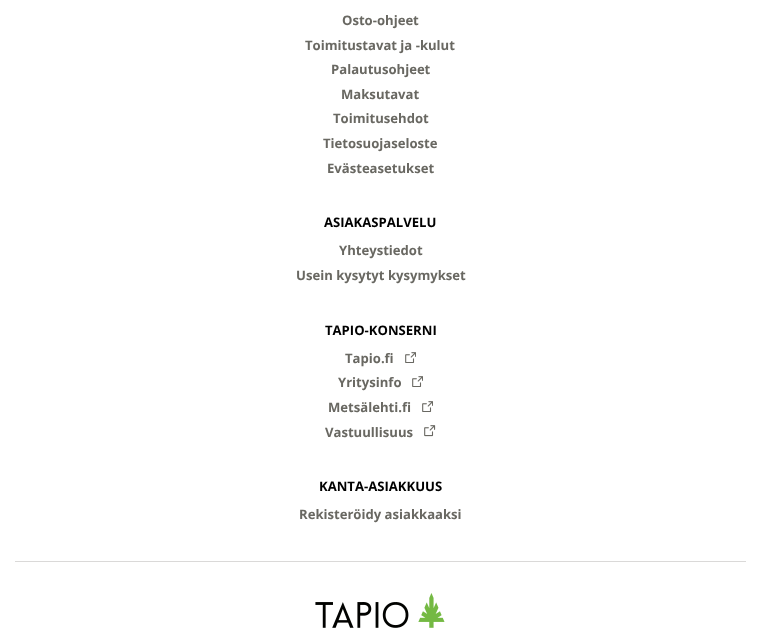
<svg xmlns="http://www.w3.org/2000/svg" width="761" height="644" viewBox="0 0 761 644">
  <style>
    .t1 { font: bold 13.1px Open Sans; fill: #696862; }
    .t2 { font: bold 13.1px Open Sans; fill: #000; }
  </style>
  <rect width="100%" height="100%" fill="#fff"/>
  <text x="342" y="25" class="t1">Osto-ohjeet</text>
  <text x="305" y="50" class="t1">Toimitustavat ja -kulut</text>
  <text x="331" y="74" class="t1">Palautusohjeet</text>
  <text x="341" y="99" class="t1">Maksutavat</text>
  <text x="333" y="123" class="t1">Toimitusehdot</text>
  <text x="323" y="148" class="t1">Tietosuojaseloste</text>
  <text x="327" y="173" class="t1">Evästeasetukset</text>
  <text x="324" y="227" class="t2">ASIAKASPALVELU</text>
  <text x="339" y="255" class="t1">Yhteystiedot</text>
  <text x="296" y="280" class="t1">Usein kysytyt kysymykset</text>
  <text x="325" y="335" class="t2">TAPIO-KONSERNI</text>
  <text x="345" y="363" class="t1">Tapio.fi</text>
  <image x="405" y="352" width="11" height="11" href="images/1.png"/>
  <text x="338" y="387" class="t1">Yritysinfo</text>
  <image x="412" y="376" width="11" height="11" href="images/1.png"/>
  <text x="328" y="412" class="t1">Metsälehti.fi</text>
  <image x="422" y="401" width="11" height="11" href="images/1.png"/>
  <text x="325" y="437" class="t1">Vastuullisuus</text>
  <image x="424" y="425" width="12" height="12" href="images/2.png"/>
  <text x="319" y="491" class="t2">KANTA-ASIAKKUUS</text>
  <text x="299" y="519" class="t1">Rekisteröidy asiakkaaksi</text>
  <rect x="15" y="561" width="731" height="1" fill="#dad9d8"/>
  <image x="315" y="593" width="130" height="35" href="images/3.png"/>
</svg>
